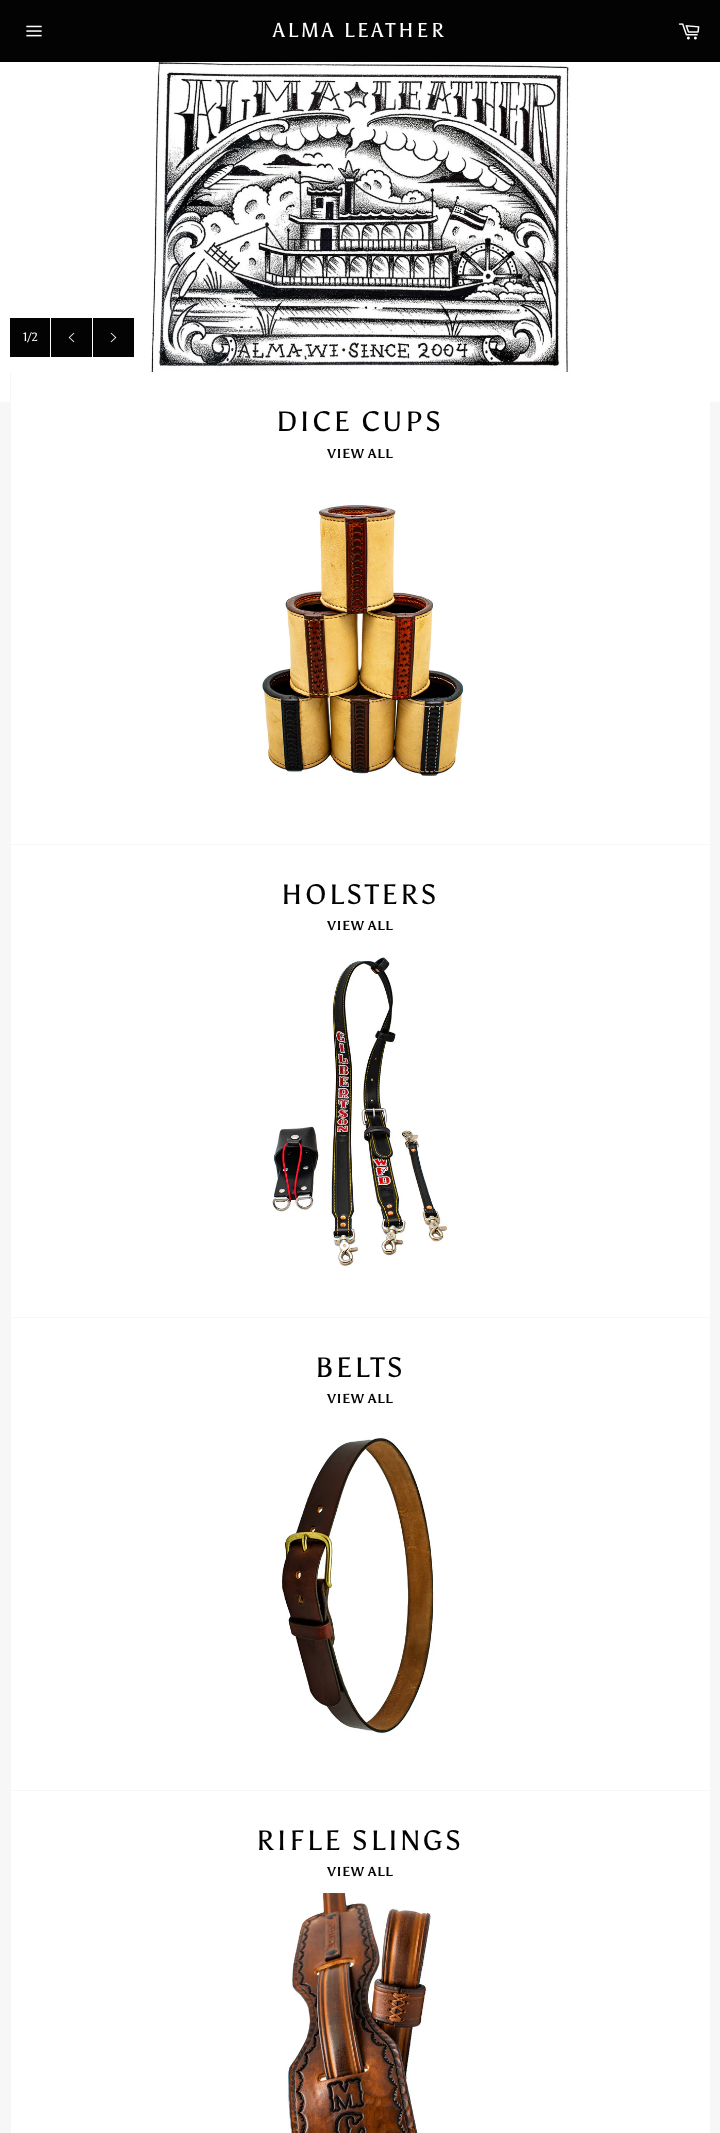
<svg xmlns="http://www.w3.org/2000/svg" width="720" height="2133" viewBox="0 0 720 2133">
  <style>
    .t1 { font: 20px Asul; letter-spacing: 3px; fill: #fff; }
    .t2 { font: 12px Asul; fill: #fff; }
    .t3 { font: 28px Asul; letter-spacing: 2.75px; fill: #030303; }
    .t4 { font: bold 13px Asul; letter-spacing: 0.5px; fill: #030303; }
  </style>
  <rect width="100%" height="100%" fill="#f7f7f7"/>
  <rect x="0" y="0" width="720" height="62" fill="#030303"/>
  <image x="26" y="25" width="16" height="12" href="images/1.png"/>
  <text x="273" y="37" class="t1">ALMA LEATHER</text>
  <image x="678" y="23" width="22" height="17" href="images/2.png"/>
  <image x="0" y="62" width="720" height="340" href="images/3.png"/>
  <rect x="10" y="318" width="40" height="39" fill="#030303"/>
  <text x="23" y="341" class="t2">1/2</text>
  <rect x="51" y="318" width="41" height="39" fill="#030303"/>
  <image x="68" y="332" width="7" height="11" href="images/4.png"/>
  <rect x="93" y="318" width="41" height="39" fill="#030303"/>
  <image x="110" y="332" width="7" height="11" href="images/5.png"/>
  <rect x="11" y="372" width="699" height="472" fill="#fff"/>
  <rect x="10" y="372" width="1" height="30" fill="#f7f7f7"/>
  <text x="276" y="431" class="t3">DICE CUPS</text>
  <text x="327" y="458" class="t4">VIEW ALL</text>
  <image x="262" y="505" width="202" height="272" href="images/6.png"/>
  <rect x="11" y="845" width="699" height="472" fill="#fff"/>
  <text x="281" y="904" class="t3">HOLSTERS</text>
  <text x="327" y="930" class="t4">VIEW ALL</text>
  <image x="271" y="955" width="177" height="312" href="images/7.png"/>
  <rect x="11" y="1318" width="699" height="472" fill="#fff"/>
  <text x="315" y="1377" class="t3">BELTS</text>
  <text x="327" y="1403" class="t4">VIEW ALL</text>
  <image x="280" y="1437" width="155" height="297" href="images/8.png"/>
  <rect x="11" y="1791" width="699" height="342" fill="#fff"/>
  <text x="256" y="1850" class="t3">RIFLE SLINGS</text>
  <text x="327" y="1876" class="t4">VIEW ALL</text>
  <image x="287" y="1893" width="144" height="240" href="images/9.png"/>
</svg>
